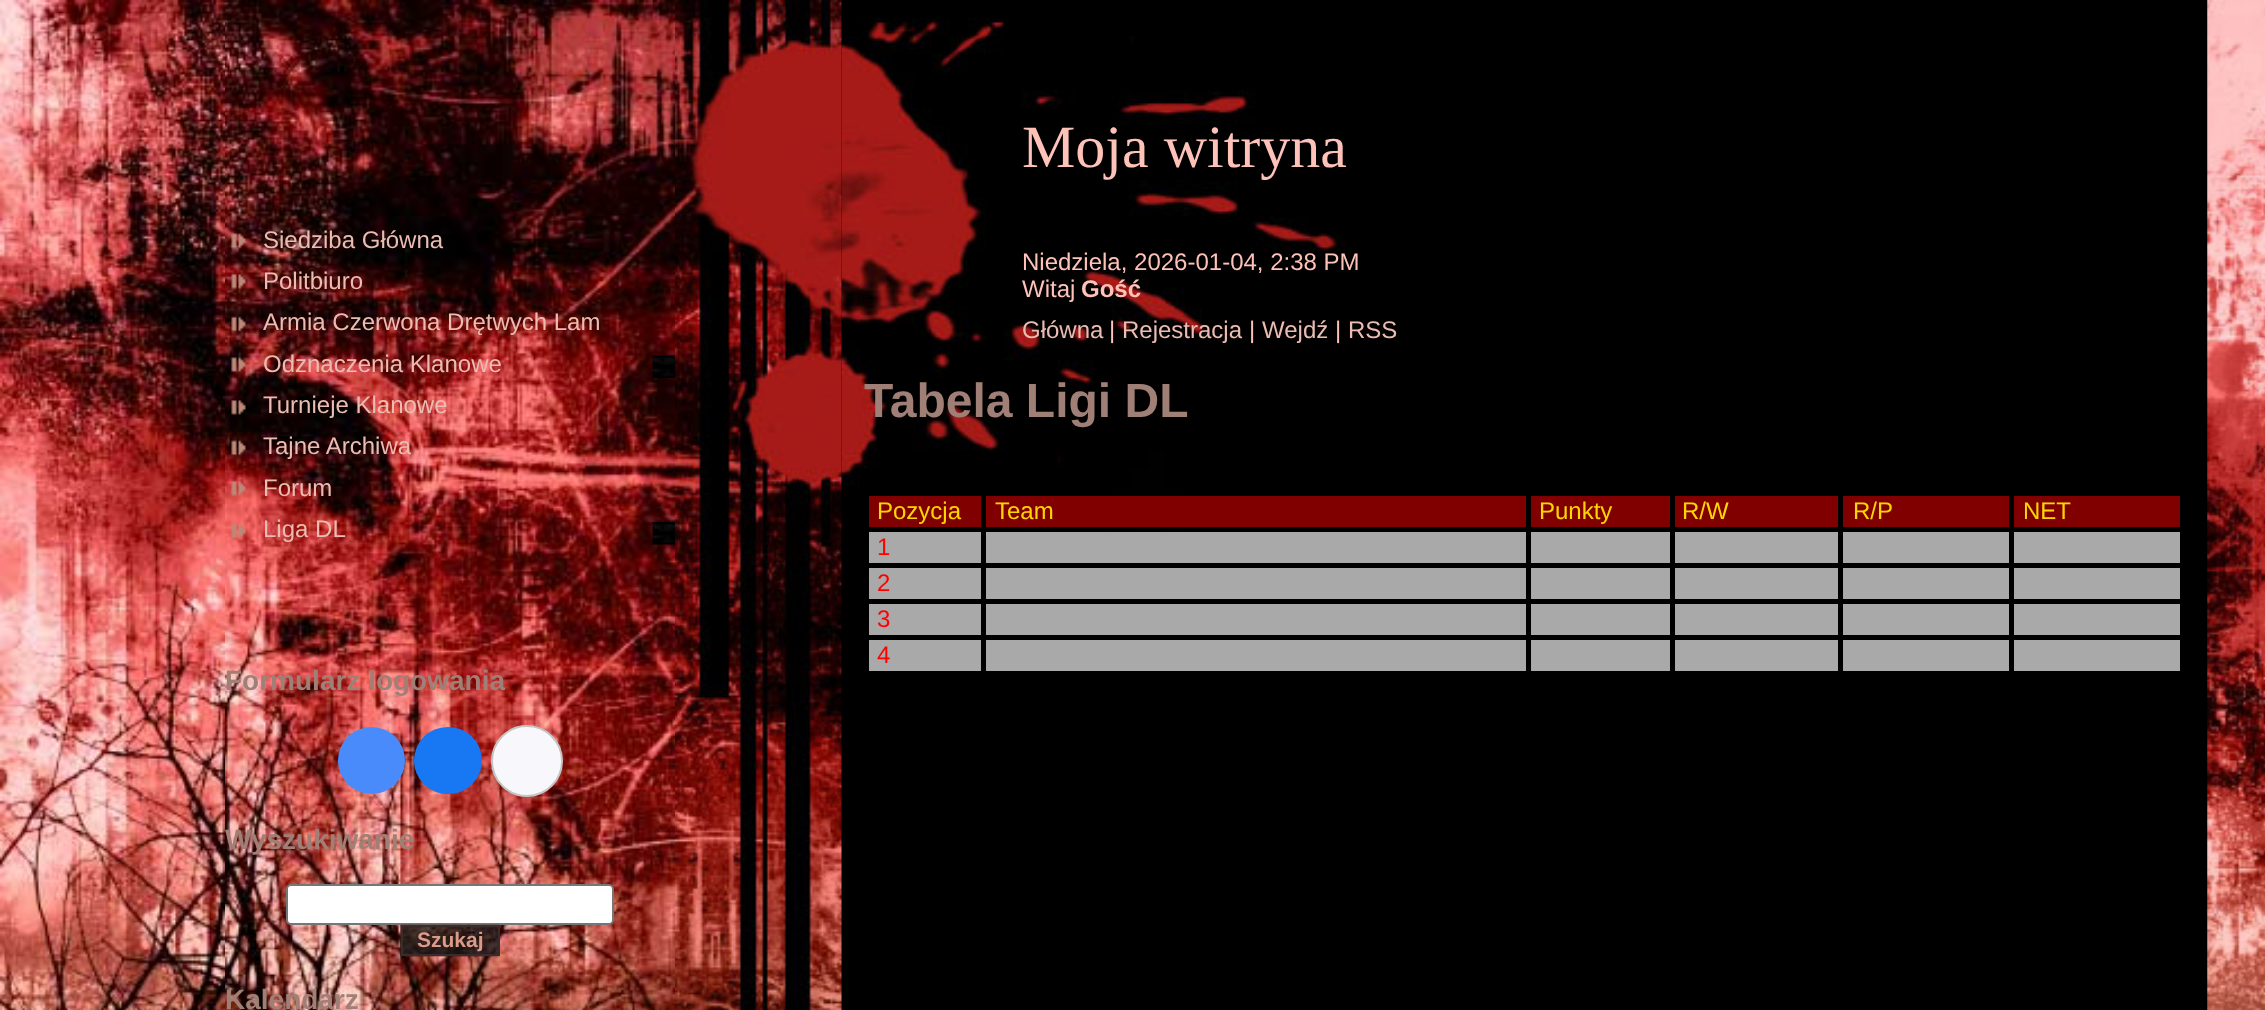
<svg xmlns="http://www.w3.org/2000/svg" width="2265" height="1010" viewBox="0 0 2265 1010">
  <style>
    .t1 { font: 24px Liberation Sans; fill: #ebbcb1; }
    .t2 { font: bold 28px Liberation Sans; fill: #a08076; }
    .t3 { font: bold 21px Liberation Sans; fill: #dc9a8a; }
    .t4 { font: 60px Liberation Serif; fill: #fec2b8; }
    .t5 { font: 24px Liberation Sans; fill: #fec2b8; }
    .t6 { font: bold 24px Liberation Sans; fill: #fec2b8; }
    .t7 { font: bold 48px Liberation Sans; fill: #a08076; }
    .t8 { font: 24px Liberation Sans; fill: #ffd700; }
    .t9 { font: 24px Liberation Sans; fill: #f00; }
  </style>
  <rect width="100%" height="100%" fill="#000"/>
  <image x="0" y="0" width="225" height="1010" href="images/1.png"/>
  <image x="225" y="0" width="450" height="1010" href="images/2.png"/>
  <image x="231" y="233" width="15" height="16" href="images/3.png"/>
  <text x="263" y="248" class="t1">Siedziba Główna</text>
  <image x="231" y="274" width="15" height="15" href="images/4.png"/>
  <text x="263" y="289" class="t1">Politbiuro</text>
  <image x="231" y="316" width="15" height="16" href="images/5.png"/>
  <text x="263" y="330" class="t1">Armia Czerwona Drętwych Lam</text>
  <image x="231" y="357" width="15" height="15" href="images/6.png"/>
  <text x="263" y="372" class="t1">Odznaczenia Klanowe</text>
  <image x="652" y="355" width="23" height="23" href="images/7.png"/>
  <image x="231" y="400" width="15" height="15" href="images/8.png"/>
  <text x="263" y="413" class="t1">Turnieje Klanowe</text>
  <image x="231" y="440" width="15" height="16" href="images/9.png"/>
  <text x="263" y="454" class="t1">Tajne Archiwa</text>
  <image x="231" y="481" width="15" height="15" href="images/10.png"/>
  <text x="263" y="496" class="t1">Forum</text>
  <image x="231" y="523" width="15" height="16" href="images/11.png"/>
  <text x="263" y="537" class="t1">Liga DL</text>
  <image x="652" y="522" width="23" height="23" href="images/12.png"/>
  <text x="225" y="690" class="t2">Formularz logowania</text>
  <circle cx="371.5" cy="760.5" r="33.5" fill="#498bfa"/>
  <rect x="414" y="727" width="68" height="67" rx="33.5" fill="#1877f2"/>
  <circle cx="527" cy="761" r="35" fill="#f8f8fc" stroke="#c4c4c4" stroke-width="2"/>
  <text x="225" y="849" class="t2">Wyszukiwanie</text>
  <rect x="287" y="885" width="326" height="39" rx="4" fill="#fff" stroke="#767676" stroke-width="2"/>
  <image x="400" y="924" width="100" height="33" href="images/13.png"/>
  <rect x="402" y="926" width="97" height="29" fill="none" stroke="#392c2a" stroke-width="2"/>
  <text x="417" y="947" class="t3">Szukaj</text>
  <text x="225" y="1009" class="t2">Kalendarz</text>
  <image x="841" y="18" width="504" height="528" href="images/15.png"/>
  <image x="675" y="0" width="167" height="1010" href="images/14.png"/>
  <text x="1022" y="167" class="t4">Moja witryna</text>
  <text x="1022" y="270" class="t5">Niedziela, 2026-01-04, 2:38 PM</text>
  <text x="1022" y="297" class="t5">Witaj</text>
  <text x="1081" y="297" class="t6">Gość</text>
  <text x="1022" y="338" class="t1">Główna</text>
  <text x="1109" y="338" class="t5">|</text>
  <text x="1122" y="338" class="t1">Rejestracja</text>
  <text x="1249" y="338" class="t5">|</text>
  <text x="1262" y="338" class="t1">Wejdź</text>
  <text x="1335" y="338" class="t5">|</text>
  <text x="1348" y="338" class="t1">RSS</text>
  <text x="864" y="417" class="t7">Tabela Ligi DL</text>
  <rect x="869" y="496" width="112" height="31" fill="#800000"/>
  <text x="877" y="519" class="t8">Pozycja</text>
  <rect x="986" y="496" width="540" height="31" fill="#800000"/>
  <text x="995" y="519" class="t8">Team</text>
  <rect x="1531" y="496" width="139" height="31" fill="#800000"/>
  <text x="1539" y="519" class="t8">Punkty</text>
  <rect x="1675" y="496" width="163" height="31" fill="#800000"/>
  <text x="1682" y="519" class="t8">R/W</text>
  <rect x="1843" y="496" width="166" height="31" fill="#800000"/>
  <text x="1853" y="519" class="t8">R/P</text>
  <rect x="2014" y="496" width="166" height="31" fill="#800000"/>
  <text x="2023" y="519" class="t8">NET</text>
  <rect x="869" y="532" width="112" height="31" fill="#a9a9a9"/>
  <text x="877" y="555" class="t9">1</text>
  <rect x="986" y="532" width="540" height="31" fill="#a9a9a9"/>
  <rect x="1075" y="527" width="30" height="5" fill="#000"/>
  <rect x="1531" y="532" width="139" height="31" fill="#a9a9a9"/>
  <rect x="1675" y="532" width="163" height="31" fill="#a9a9a9"/>
  <rect x="1843" y="532" width="166" height="31" fill="#a9a9a9"/>
  <rect x="2014" y="532" width="166" height="31" fill="#a9a9a9"/>
  <rect x="869" y="568" width="112" height="31" fill="#a9a9a9"/>
  <text x="877" y="591" class="t9">2</text>
  <rect x="986" y="568" width="540" height="31" fill="#a9a9a9"/>
  <rect x="1531" y="568" width="139" height="31" fill="#a9a9a9"/>
  <rect x="1675" y="568" width="163" height="31" fill="#a9a9a9"/>
  <rect x="1843" y="568" width="166" height="31" fill="#a9a9a9"/>
  <rect x="2014" y="568" width="166" height="31" fill="#a9a9a9"/>
  <rect x="869" y="604" width="112" height="31" fill="#a9a9a9"/>
  <text x="877" y="627" class="t9">3</text>
  <rect x="986" y="604" width="540" height="31" fill="#a9a9a9"/>
  <rect x="1531" y="604" width="139" height="31" fill="#a9a9a9"/>
  <rect x="1675" y="604" width="163" height="31" fill="#a9a9a9"/>
  <rect x="1843" y="604" width="166" height="31" fill="#a9a9a9"/>
  <rect x="2014" y="604" width="166" height="31" fill="#a9a9a9"/>
  <rect x="869" y="640" width="112" height="31" fill="#a9a9a9"/>
  <text x="877" y="663" class="t9">4</text>
  <rect x="986" y="640" width="540" height="31" fill="#a9a9a9"/>
  <rect x="1531" y="640" width="139" height="31" fill="#a9a9a9"/>
  <rect x="1675" y="640" width="163" height="31" fill="#a9a9a9"/>
  <rect x="1843" y="640" width="166" height="31" fill="#a9a9a9"/>
  <rect x="2014" y="640" width="166" height="31" fill="#a9a9a9"/>
  <image x="2207" y="0" width="58" height="1010" href="images/16.png"/>
</svg>
